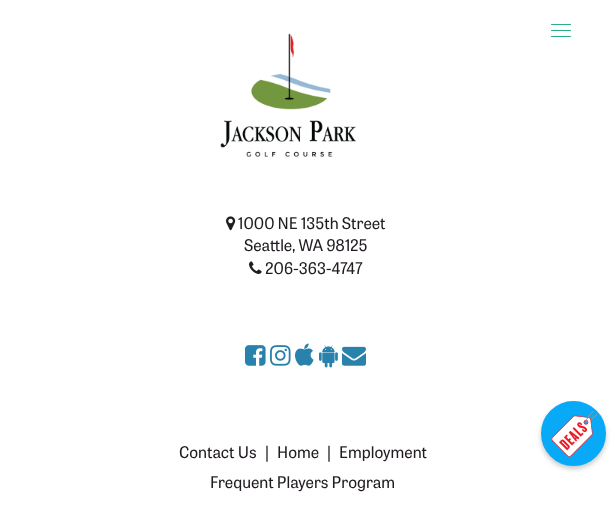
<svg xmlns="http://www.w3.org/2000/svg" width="611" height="516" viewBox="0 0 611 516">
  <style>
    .t1 { font: 16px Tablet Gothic; fill: #211c21; }
  </style>
  <rect width="100%" height="100%" fill="#fff"/>
  <rect x="551" y="24" width="20" height="1" rx="0.5" fill="#29ae84"/>
  <rect x="551" y="30" width="20" height="1" rx="0.5" fill="#29ae84"/>
  <rect x="551" y="36" width="20" height="1" rx="0.5" fill="#29ae84"/>
  <image x="220" y="33" width="137" height="124" href="images/1.png"/>
  <image x="226" y="216" width="10" height="15" href="images/2.png"/>
  <text x="238" y="229" class="t1">1000 NE 135th Street</text>
  <text x="244" y="251" class="t1">Seattle, WA 98125</text>
  <image x="249" y="261" width="13" height="13" href="images/3.png"/>
  <text x="265" y="274" class="t1">206-363-4747</text>
  <image x="245" y="345" width="21" height="21" href="images/4.png"/>
  <image x="270" y="345" width="21" height="21" href="images/5.png"/>
  <image x="295" y="343" width="19" height="23" href="images/6.png"/>
  <image x="319" y="345" width="19" height="23" href="images/7.png"/>
  <image x="342" y="346" width="24" height="20" href="images/8.png"/>
  <text x="179" y="458" class="t1">Contact Us</text>
  <text x="265" y="458" class="t1">|</text>
  <text x="277" y="458" class="t1">Home</text>
  <text x="327" y="458" class="t1">|</text>
  <text x="339" y="458" class="t1">Employment</text>
  <text x="210" y="488" class="t1">Frequent Players Program</text>
  <rect x="541" y="404" width="65" height="65" rx="32.5" fill="#474b564d" filter="blur(2.5px)"/>
  <circle cx="573.5" cy="433.5" r="31.5" fill="#08aaf7" stroke="#08aaf7" stroke-width="2"/>
  <image x="551" y="410" width="46" height="47" href="images/9.png"/>
</svg>
